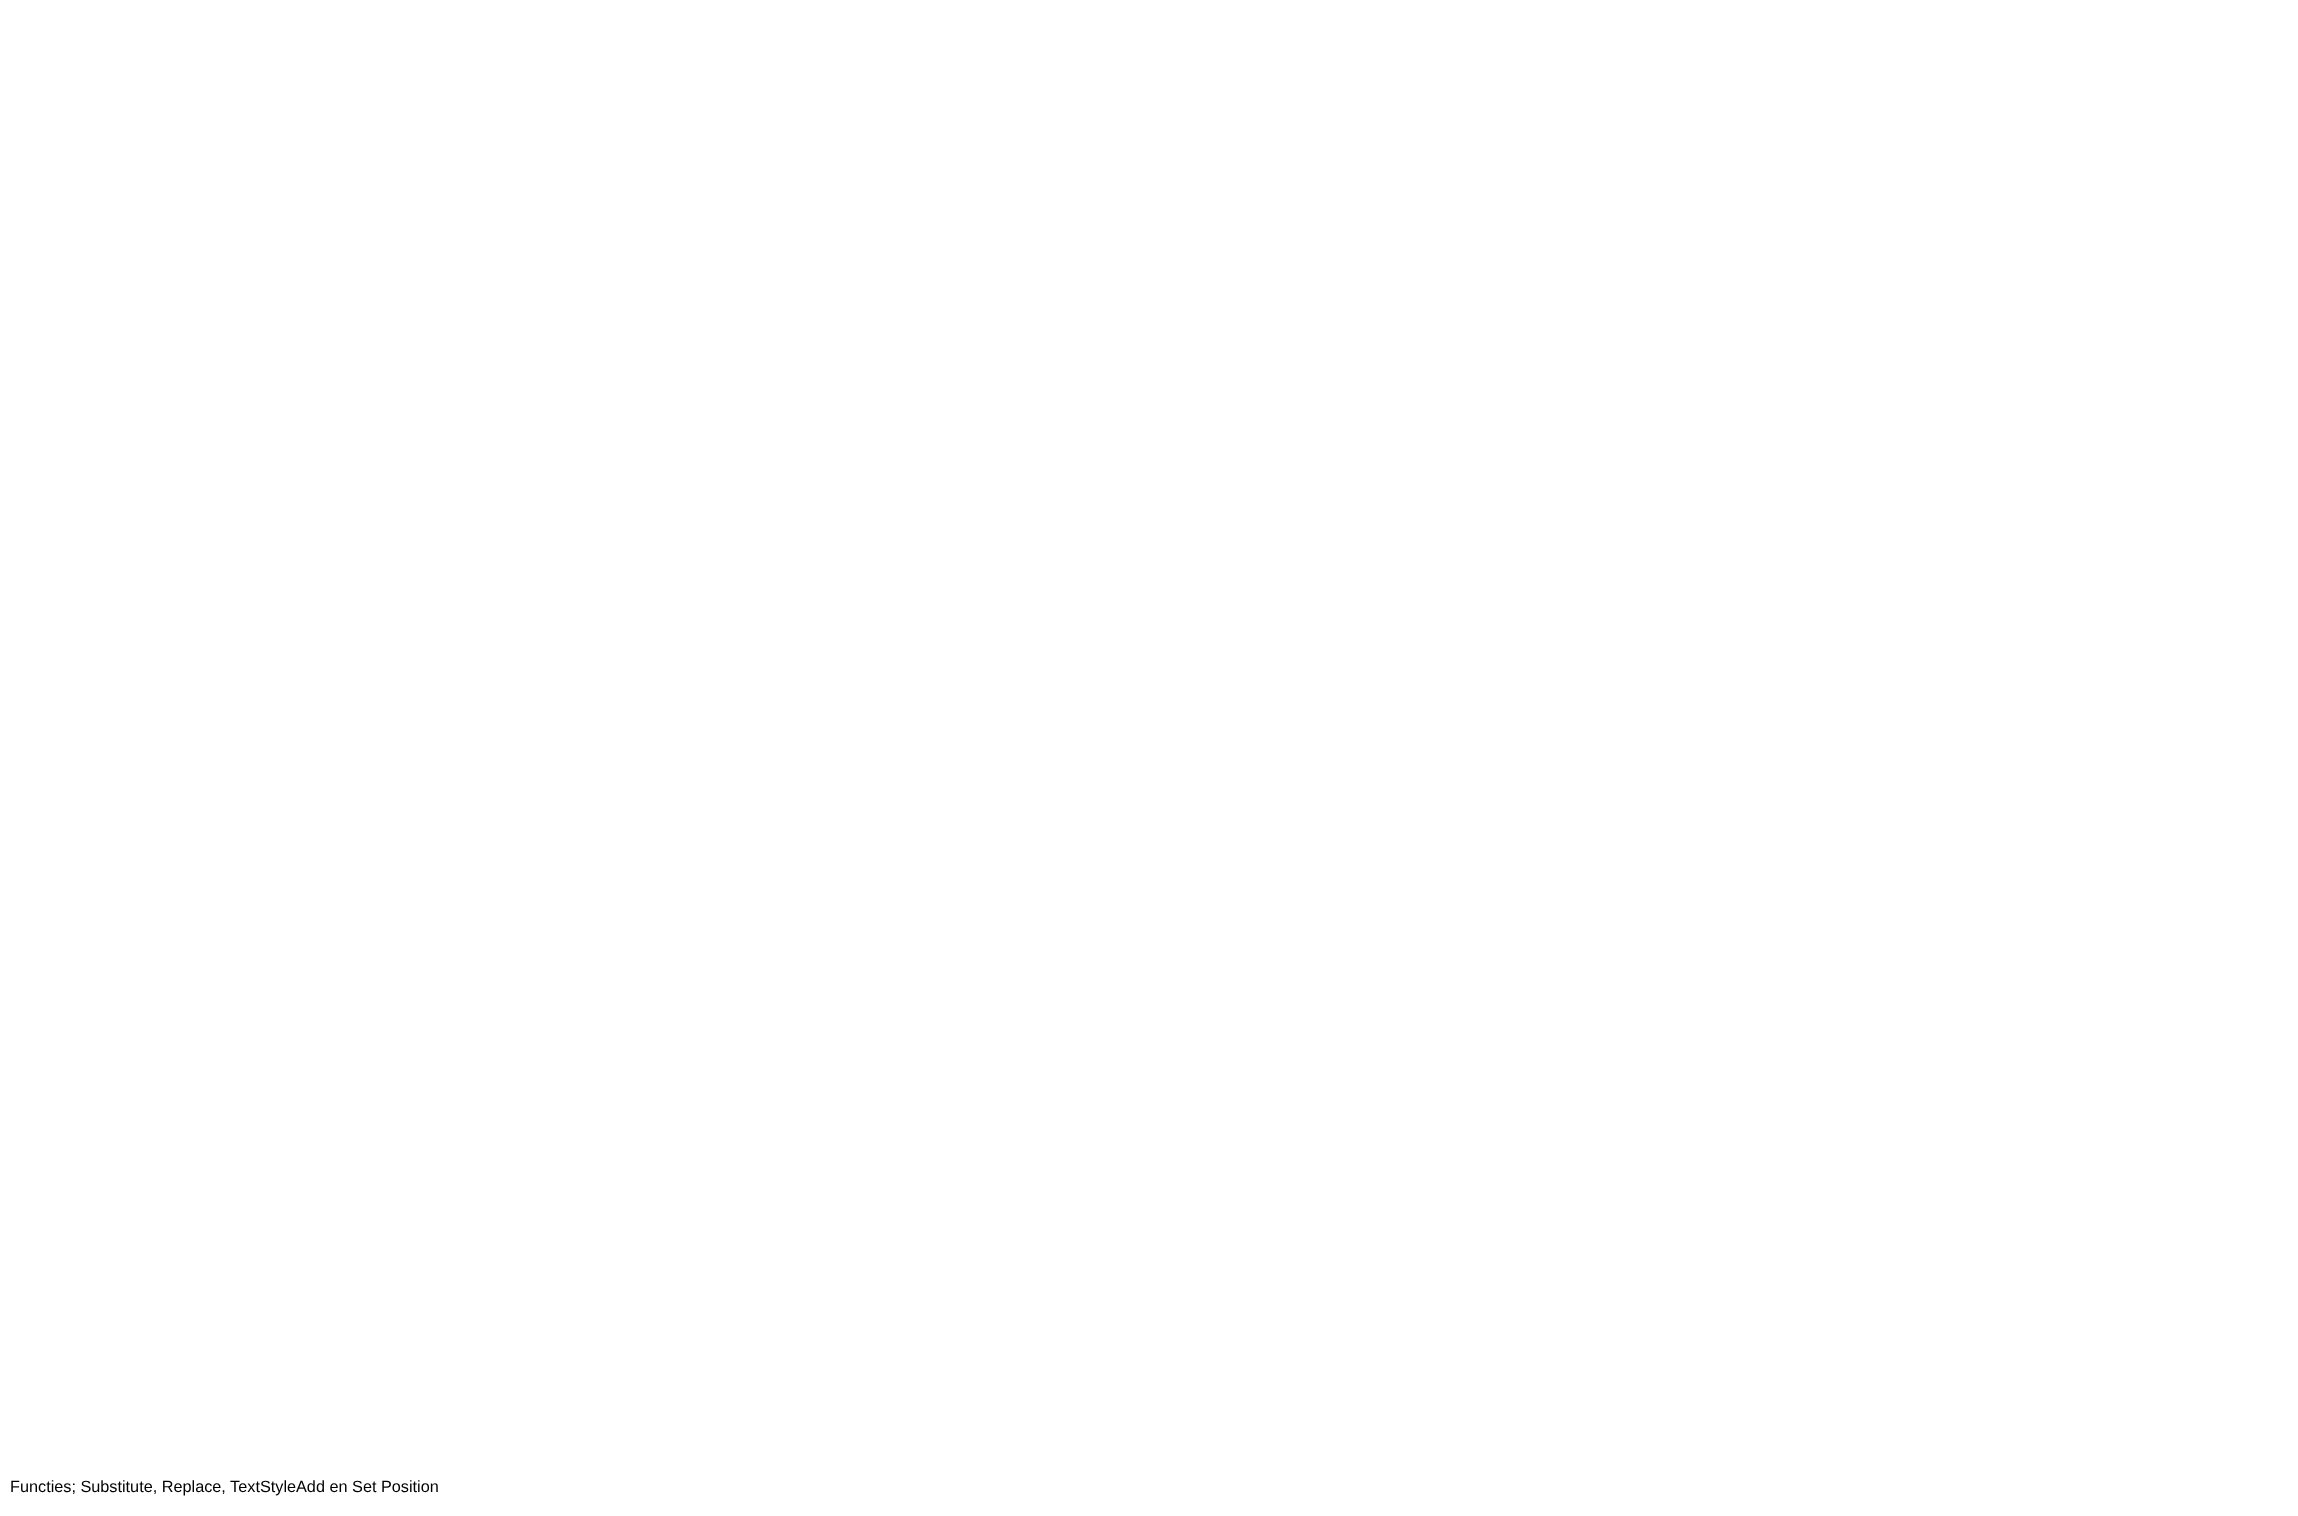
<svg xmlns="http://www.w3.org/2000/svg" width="2298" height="1516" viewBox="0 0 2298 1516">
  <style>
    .t1 { font: 16.25px Liberation Sans; fill: #000; }
  </style>
  <rect width="100%" height="100%" fill="#fff"/>
  <text x="10" y="1492" class="t1">Functies; Substitute, Replace, TextStyleAdd en Set Position</text>
</svg>
